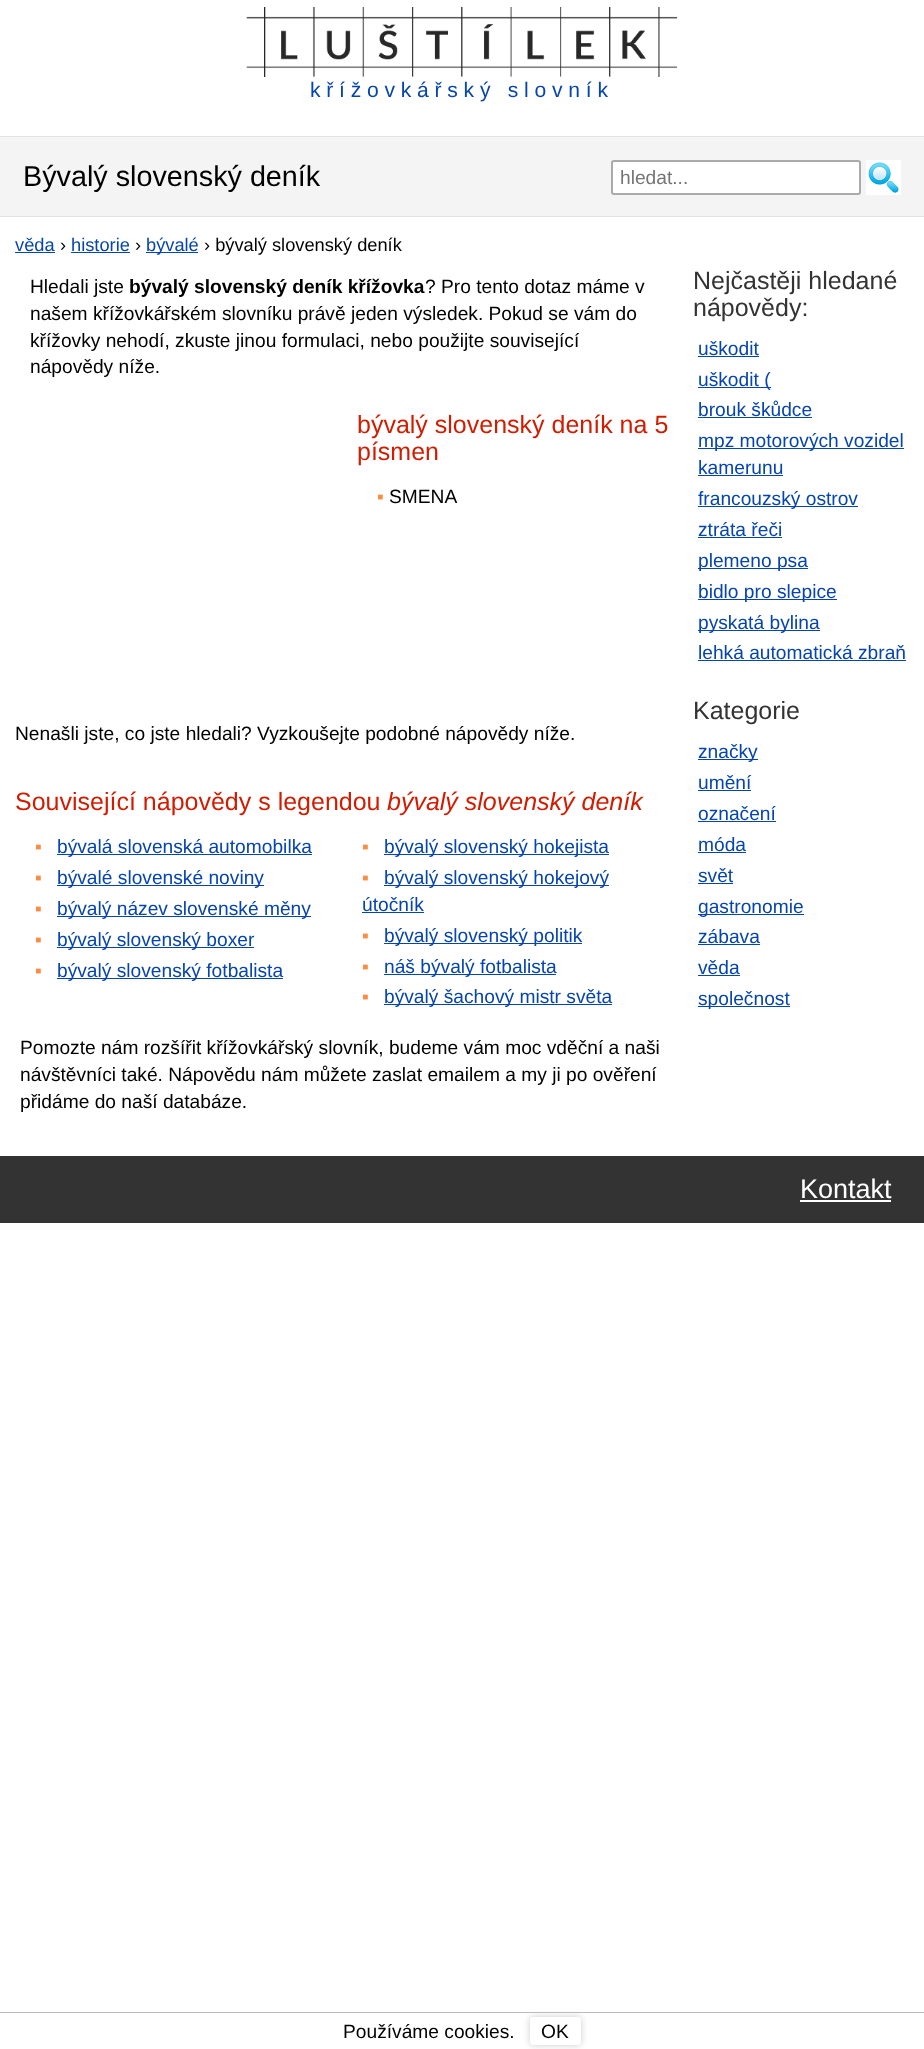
<svg xmlns="http://www.w3.org/2000/svg" width="924" height="2049" viewBox="0 0 924 2049">
  <style>
    .t1 { font: 28.75px Liberation Sans; fill: #000; }
    .t2 { font: 21.1px Liberation Sans; letter-spacing: 5.75px; fill: #0645ad; }
    .t3 { font: 19.2px Liberation Sans; fill: #757575; }
    .t4 { font: 18.25px Liberation Sans; fill: #0645ad; }
    .t5 { font: 18.25px Liberation Sans; fill: #000; }
    .t6 { font: 19.2px Liberation Sans; fill: #000; }
    .t7 { font: bold 19.2px Liberation Sans; fill: #000; }
    .t8 { font: 25px Liberation Sans; fill: #d11c00; }
    .t9 { font: 19.2px Liberation Sans; fill: #fb8d43; }
    .t10 { font: italic 25px Liberation Sans; fill: #d11c00; }
    .t11 { font: 19.2px Liberation Sans; fill: #0645ad; }
    .t12 { font: 25px Liberation Sans; fill: #333; }
    .t13 { font: 27px Liberation Sans; fill: #fff; }
  </style>
  <defs>
    <clipPath id="clip1"><path d="M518 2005H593V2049H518ZM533 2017H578C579.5 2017 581 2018.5 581 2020V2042C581 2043.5 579.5 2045 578 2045H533C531.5 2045 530 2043.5 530 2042V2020C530 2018.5 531.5 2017 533 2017Z" clip-rule="evenodd"/></clipPath>
  </defs>
  <rect width="100%" height="100%" fill="#fff"/>
  <rect x="0" y="137" width="924" height="79" fill="#f4f4f4"/>
  <rect x="0" y="136" width="924" height="1" fill="#e2e2e2"/>
  <rect x="0" y="216" width="924" height="1" fill="#e2e2e2"/>
  <text x="23" y="186" class="t1">Bývalý slovenský deník</text>
  <image x="246" y="7" width="432" height="70" href="images/1.png"/>
  <text x="310" y="97" class="t2">křížovkářský slovník</text>
  <rect x="612" y="161" width="248" height="33" rx="2" fill="#fff" stroke="#aaa" stroke-width="2"/>
  <text x="620" y="184" class="t3">hledat...</text>
  <image x="866" y="160" width="35" height="35" href="images/2.png"/>
  <text x="15" y="251" class="t4">věda</text>
  <rect x="15" y="252" width="40" height="1" fill="#0645ad"/>
  <text x="60" y="251" class="t5">›</text>
  <text x="71" y="251" class="t4">historie</text>
  <rect x="71" y="252" width="59" height="1" fill="#0645ad"/>
  <text x="135" y="251" class="t5">›</text>
  <rect x="146" y="252" width="52" height="1" fill="#0645ad"/>
  <text x="146" y="251" class="t4">bývalé</text>
  <text x="204" y="251" class="t5">› bývalý slovenský deník</text>
  <text x="30" y="293" class="t6">Hledali jste</text>
  <text x="129" y="293" class="t7">bývalý slovenský deník křížovka</text>
  <text x="425" y="293" class="t6">? Pro tento dotaz máme v</text>
  <text x="30" y="320" class="t6">našem křížovkářském slovníku právě jeden výsledek. Pokud se vám do</text>
  <text x="30" y="347" class="t6">křížovky nehodí, zkuste jinou formulaci, nebo použijte související</text>
  <text x="30" y="373" class="t6">nápovědy níže.</text>
  <text x="357" y="433" class="t8">bývalý slovenský deník na 5</text>
  <text x="357" y="460" class="t8">písmen</text>
  <text x="377" y="503" class="t9">▪</text>
  <text x="389" y="503" class="t6">SMENA</text>
  <text x="15" y="740" class="t6">Nenašli jste, co jste hledali? Vyzkoušejte podobné nápovědy níže.</text>
  <text x="15" y="810" class="t8">Související nápovědy s legendou</text>
  <text x="387" y="810" class="t10">bývalý slovenský deník</text>
  <text x="35" y="853" class="t9">▪</text>
  <rect x="57" y="854" width="255" height="1" fill="#0645ad"/>
  <text x="57" y="853" class="t11">bývalá slovenská automobilka</text>
  <text x="35" y="884" class="t9">▪</text>
  <rect x="57" y="885" width="207" height="1" fill="#0645ad"/>
  <text x="57" y="884" class="t11">bývalé slovenské noviny</text>
  <text x="35" y="915" class="t9">▪</text>
  <rect x="57" y="916" width="254" height="1" fill="#0645ad"/>
  <text x="57" y="915" class="t11">bývalý název slovenské měny</text>
  <text x="35" y="946" class="t9">▪</text>
  <rect x="57" y="947" width="197" height="1" fill="#0645ad"/>
  <text x="57" y="946" class="t11">bývalý slovenský boxer</text>
  <text x="35" y="977" class="t9">▪</text>
  <rect x="57" y="978" width="226" height="1" fill="#0645ad"/>
  <text x="57" y="977" class="t11">bývalý slovenský fotbalista</text>
  <text x="362" y="853" class="t9">▪</text>
  <rect x="384" y="854" width="225" height="1" fill="#0645ad"/>
  <text x="384" y="853" class="t11">bývalý slovenský hokejista</text>
  <text x="362" y="884" class="t9">▪</text>
  <rect x="384" y="885" width="225" height="1" fill="#0645ad"/>
  <text x="384" y="884" class="t11">bývalý slovenský hokejový</text>
  <text x="362" y="911" class="t11">útočník</text>
  <rect x="362" y="912" width="62" height="1" fill="#0645ad"/>
  <text x="362" y="942" class="t9">▪</text>
  <rect x="384" y="943" width="198" height="1" fill="#0645ad"/>
  <text x="384" y="942" class="t11">bývalý slovenský politik</text>
  <text x="362" y="973" class="t9">▪</text>
  <rect x="384" y="974" width="172" height="1" fill="#0645ad"/>
  <text x="384" y="973" class="t11">náš bývalý fotbalista</text>
  <text x="362" y="1003" class="t9">▪</text>
  <rect x="384" y="1004" width="228" height="1" fill="#0645ad"/>
  <text x="384" y="1003" class="t11">bývalý šachový mistr světa</text>
  <text x="20" y="1054" class="t6">Pomozte nám rozšířit křížovkářský slovník, budeme vám moc vděční a naši</text>
  <text x="20" y="1081" class="t6">návštěvníci také. Nápovědu nám můžete zaslat emailem a my ji po ověření</text>
  <text x="20" y="1108" class="t6">přidáme do naší databáze.</text>
  <text x="693" y="289" class="t12">Nejčastěji hledané</text>
  <text x="693" y="316" class="t12">nápovědy:</text>
  <text x="698" y="355" class="t11">uškodit</text>
  <rect x="698" y="356" width="61" height="1" fill="#0645ad"/>
  <rect x="698" y="387" width="73" height="1" fill="#0645ad"/>
  <text x="698" y="386" class="t11">uškodit (</text>
  <text x="698" y="416" class="t11">brouk škůdce</text>
  <rect x="698" y="417" width="114" height="1" fill="#0645ad"/>
  <rect x="698" y="448" width="206" height="1" fill="#0645ad"/>
  <text x="698" y="447" class="t11">mpz motorových vozidel</text>
  <text x="698" y="474" class="t11">kamerunu</text>
  <rect x="698" y="475" width="85" height="1" fill="#0645ad"/>
  <rect x="698" y="506" width="160" height="1" fill="#0645ad"/>
  <text x="698" y="505" class="t11">francouzský ostrov</text>
  <text x="698" y="536" class="t11">ztráta řeči</text>
  <rect x="698" y="537" width="84" height="1" fill="#0645ad"/>
  <rect x="698" y="568" width="110" height="1" fill="#0645ad"/>
  <text x="698" y="567" class="t11">plemeno psa</text>
  <rect x="698" y="599" width="139" height="1" fill="#0645ad"/>
  <text x="698" y="598" class="t11">bidlo pro slepice</text>
  <rect x="698" y="630" width="122" height="1" fill="#0645ad"/>
  <text x="698" y="629" class="t11">pyskatá bylina</text>
  <text x="698" y="659" class="t11">lehká automatická zbraň</text>
  <rect x="698" y="660" width="208" height="1" fill="#0645ad"/>
  <text x="693" y="719" class="t12">Kategorie</text>
  <rect x="698" y="759" width="60" height="1" fill="#0645ad"/>
  <text x="698" y="758" class="t11">značky</text>
  <text x="698" y="789" class="t11">umění</text>
  <rect x="698" y="790" width="53" height="1" fill="#0645ad"/>
  <text x="698" y="820" class="t11">označení</text>
  <rect x="698" y="821" width="78" height="1" fill="#0645ad"/>
  <text x="698" y="851" class="t11">móda</text>
  <rect x="698" y="852" width="48" height="1" fill="#0645ad"/>
  <text x="698" y="882" class="t11">svět</text>
  <rect x="698" y="883" width="35" height="1" fill="#0645ad"/>
  <rect x="698" y="914" width="106" height="1" fill="#0645ad"/>
  <text x="698" y="913" class="t11">gastronomie</text>
  <text x="698" y="943" class="t11">zábava</text>
  <rect x="698" y="944" width="62" height="1" fill="#0645ad"/>
  <text x="698" y="974" class="t11">věda</text>
  <rect x="698" y="975" width="42" height="1" fill="#0645ad"/>
  <rect x="698" y="1006" width="92" height="1" fill="#0645ad"/>
  <text x="698" y="1005" class="t11">společnost</text>
  <rect x="0" y="1156" width="924" height="67" fill="#333"/>
  <text x="800" y="1198" class="t13">Kontakt</text>
  <rect x="800" y="1200" width="91" height="2" fill="#fff"/>
  <rect x="0" y="2012" width="924" height="1" fill="#bbb"/>
  <text x="343" y="2038" class="t6">Používáme cookies.</text>
  <g clip-path="url(#clip1)">
    <rect x="530" y="2017" width="51" height="28" rx="3" fill="#ccc" filter="blur(3.5px)"/>
  </g>
  <text x="541" y="2038" class="t6">OK</text>
</svg>
